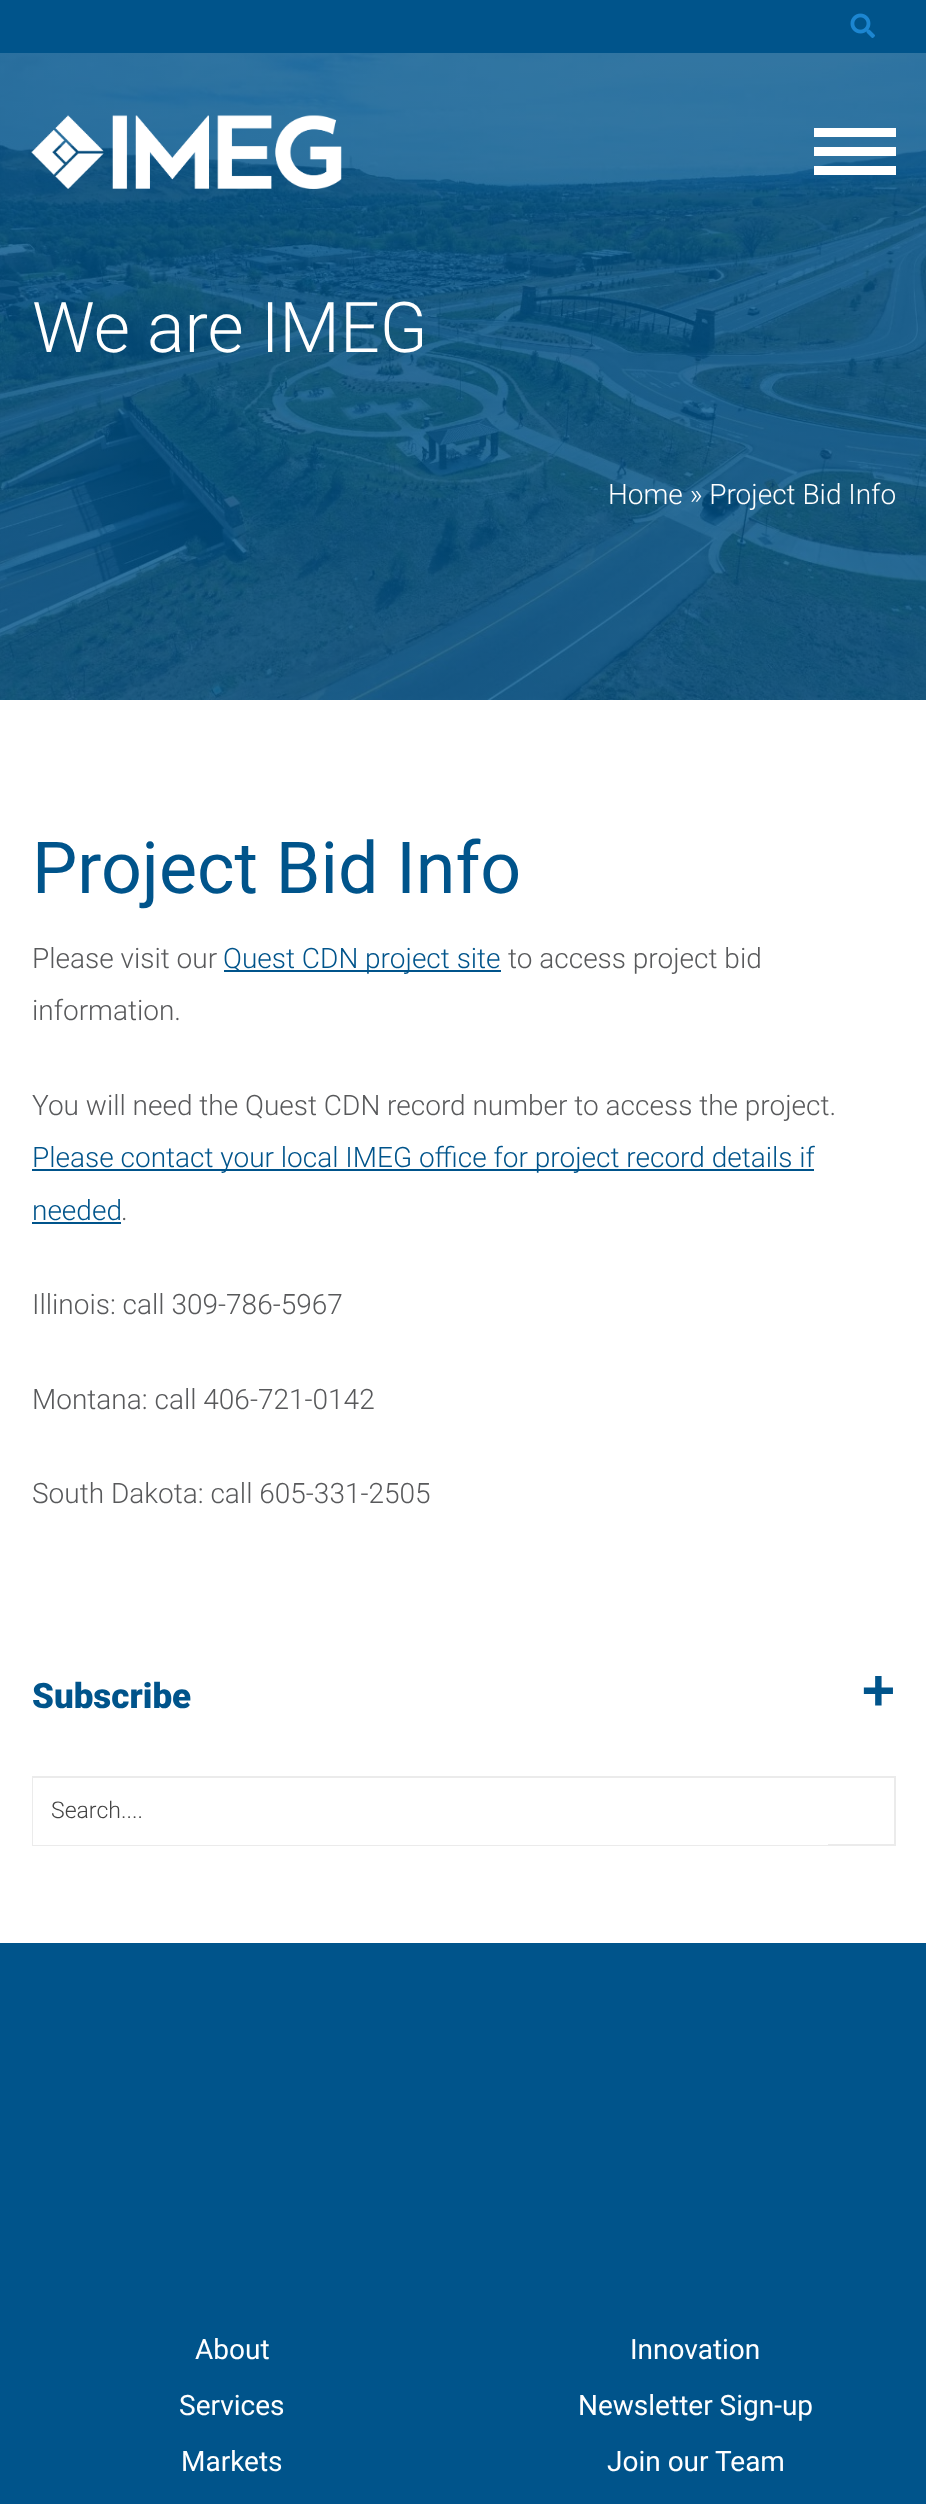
<svg xmlns="http://www.w3.org/2000/svg" width="926" height="2504" viewBox="0 0 926 2504">
  <style>
    .t1 { font: 300 70px Roboto; fill: #fff; }
    .t2 { font: 300 28px Roboto; fill: #fff; }
    .t3 { font: 71.75px Roboto; fill: #00548b; }
    .t4 { font: 300 28px Roboto; fill: #58595b; }
    .t5 { font: 300 28px Roboto; fill: #00548b; }
    .t6 { font: 900 35px Roboto; fill: #00548b; }
    .t7 { font: bold 58px Liberation Mono; fill: #00548b; }
    .t8 { font: 300 23px Roboto; fill: #444; }
    .t9 { font: 28px Roboto; fill: #fff; }
  </style>
  <rect width="100%" height="100%" fill="#fff"/>
  <image x="0" y="53" width="926" height="647" href="images/1.png"/>
  <rect x="0" y="0" width="926" height="53" fill="#00548b"/>
  <image x="850" y="13" width="25" height="25" href="images/2.png"/>
  <image x="31" y="115" width="311" height="74" href="images/3.png"/>
  <rect x="814" y="128" width="82" height="9" fill="#fff"/>
  <rect x="814" y="147" width="82" height="9" fill="#fff"/>
  <rect x="814" y="166" width="82" height="9" fill="#fff"/>
  <text x="32" y="352" class="t1">We are IMEG</text>
  <text x="608" y="504" class="t2">Home » Project Bid Info</text>
  <text x="32" y="893" class="t3">Project Bid Info</text>
  <text x="32" y="968" class="t4">Please visit our</text>
  <rect x="224" y="970" width="277" height="2" fill="#00548b"/>
  <text x="223" y="968" class="t5">Quest CDN project site</text>
  <text x="508" y="968" class="t4">to access project bid</text>
  <text x="32" y="1020" class="t4">information.</text>
  <text x="32" y="1115" class="t4">You will need the Quest CDN record number to access the project.</text>
  <rect x="32" y="1169" width="782" height="2" fill="#00548b"/>
  <text x="32" y="1167" class="t5">Please contact your local IMEG office for project record details if</text>
  <text x="32" y="1220" class="t5">needed</text>
  <rect x="32" y="1222" width="89" height="2" fill="#00548b"/>
  <text x="121" y="1220" class="t4">.</text>
  <text x="32" y="1314" class="t4">Illinois: call 309-786-5967</text>
  <text x="32" y="1409" class="t4">Montana: call 406-721-0142</text>
  <text x="32" y="1503" class="t4">South Dakota: call 605-331-2505</text>
  <text x="32" y="1708" class="t6">Subscribe</text>
  <text x="861" y="1710" class="t7">+</text>
  <rect x="33" y="1777" width="862" height="68" fill="none" stroke="#ebebeb" stroke-width="2"/>
  <rect x="33" y="1778" width="795" height="67" fill="#fff"/>
  <text x="51" y="1818" class="t8">Search....</text>
  <rect x="0" y="1943" width="926" height="561" fill="#00548b"/>
  <text x="195" y="2359" class="t9">About</text>
  <text x="179" y="2415" class="t9">Services</text>
  <text x="181" y="2471" class="t9">Markets</text>
  <text x="630" y="2359" class="t9">Innovation</text>
  <text x="578" y="2415" class="t9">Newsletter Sign-up</text>
  <text x="607" y="2471" class="t9">Join our Team</text>
</svg>
